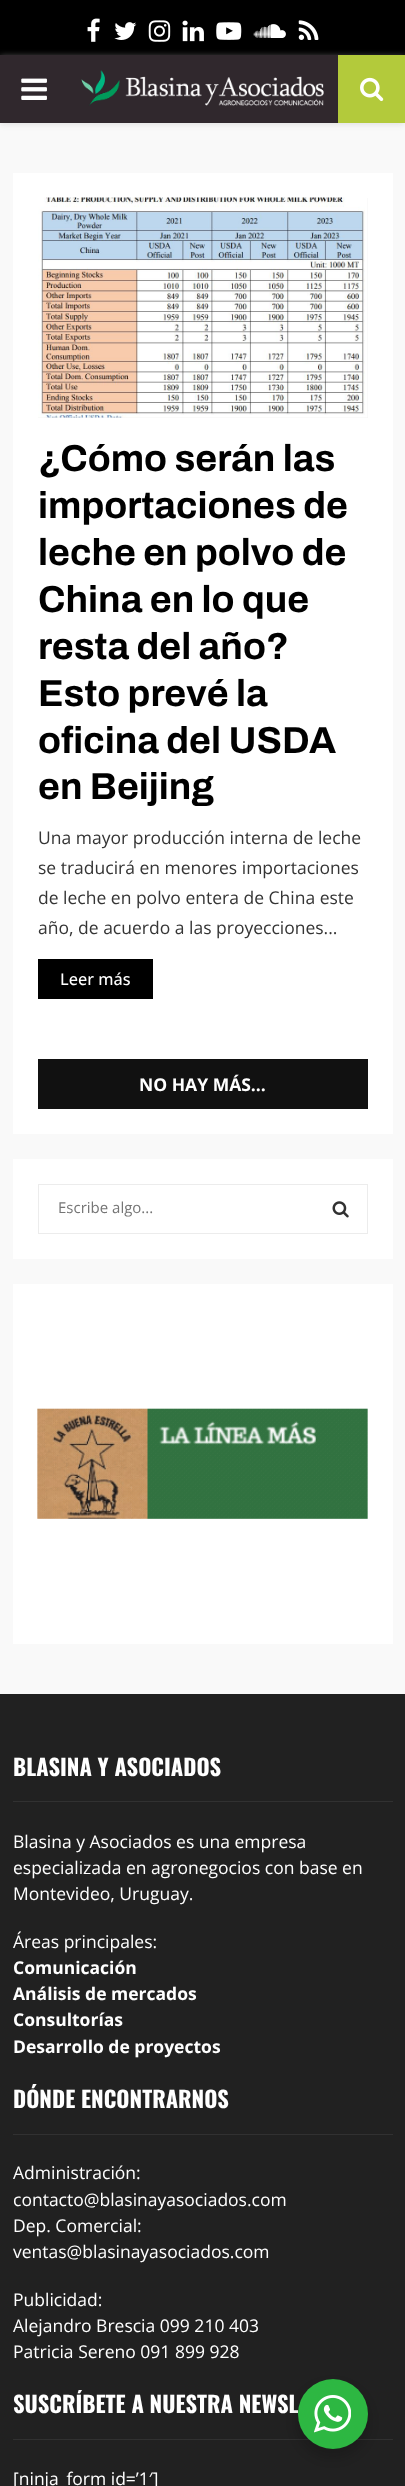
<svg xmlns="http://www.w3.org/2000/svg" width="405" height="2486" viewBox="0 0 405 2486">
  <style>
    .t1 { font: bold 37.5px Archivo; fill: #000; }
    .t2 { font: 17.5px Open Sans; fill: #353535; }
    .t3 { font: 500 16.25px Open Sans; fill: #fff; }
    .t4 { font: bold 17.5px Open Sans; fill: #fff; }
    .t5 { font: 15px Open Sans; fill: #757575; }
    .t6 { font: bold 22.5px Oswald; fill: #fff; }
    .t7 { font: 17.5px Open Sans; fill: #fff; }
  </style>
  <defs>
    <clipPath id="clip1"><rect x="13" y="2084" width="380" height="50"/></clipPath>
    <clipPath id="clip2"><rect x="13" y="2390" width="380" height="49"/></clipPath>
  </defs>
  <rect width="100%" height="100%" fill="#f9f9f9"/>
  <rect x="0" y="0" width="405" height="55" fill="#000"/>
  <image x="87" y="18" width="13" height="24" href="images/1.png"/>
  <image x="114" y="22" width="23" height="18" href="images/2.png"/>
  <image x="148" y="20" width="23" height="22" href="images/3.png"/>
  <image x="182" y="20" width="22" height="22" href="images/4.png"/>
  <image x="216" y="22" width="26" height="18" href="images/5.png"/>
  <image x="253" y="24" width="33" height="14" href="images/6.png"/>
  <image x="298" y="20" width="21" height="20" href="images/7.png"/>
  <rect x="0" y="56" width="405" height="68" fill="#bebebe75" filter="blur(3px)"/>
  <rect x="0" y="55" width="338" height="68" fill="#30282d"/>
  <image x="21" y="78" width="26" height="22" href="images/8.png"/>
  <image x="81" y="70" width="243" height="36" href="images/9.png"/>
  <rect x="338" y="55" width="67" height="68" fill="#b3ca3b"/>
  <image x="360" y="77" width="24" height="25" href="images/10.png"/>
  <rect x="13" y="173" width="380" height="961" fill="#fff"/>
  <rect x="38" y="198" width="330" height="220" fill="#f5f5f5"/>
  <image x="38" y="197" width="330" height="221" href="images/11.png"/>
  <text x="38" y="471" class="t1">¿Cómo serán las</text>
  <text x="38" y="518" class="t1">importaciones de</text>
  <text x="38" y="565" class="t1">leche en polvo de</text>
  <text x="38" y="612" class="t1">China en lo que</text>
  <text x="38" y="659" class="t1">resta del año?</text>
  <text x="38" y="706" class="t1">Esto prevé la</text>
  <text x="38" y="753" class="t1">oficina del USDA</text>
  <text x="38" y="799" class="t1">en Beijing</text>
  <text x="38" y="844" class="t2">Una mayor producción interna de leche</text>
  <text x="38" y="874" class="t2">se traducirá en menores importaciones</text>
  <text x="38" y="904" class="t2">de leche en polvo entera de China este</text>
  <text x="38" y="934" class="t2">año, de acuerdo a las proyecciones...</text>
  <rect x="38" y="959" width="115" height="40" fill="#000"/>
  <text x="60" y="985" class="t3">Leer más</text>
  <rect x="38" y="1059" width="330" height="50" fill="#111"/>
  <text x="139" y="1091" class="t4">NO HAY MÁS...</text>
  <rect x="13" y="1159" width="380" height="100" fill="#fff"/>
  <rect x="38.5" y="1184.5" width="329" height="49" fill="none" stroke="#ececec"/>
  <text x="58" y="1213" class="t5">Escribe algo...</text>
  <image x="332" y="1201" width="17" height="17" href="images/12.png"/>
  <rect x="13" y="1284" width="380" height="360" fill="#fff"/>
  <image x="37" y="1408" width="331" height="111" href="images/13.png"/>
  <rect x="0" y="1694" width="405" height="792" fill="#212121"/>
  <rect x="13" y="1801" width="380" height="1" fill="#313131"/>
  <text x="13" y="1776" class="t6">BLASINA Y ASOCIADOS</text>
  <text x="13" y="1848" class="t7">Blasina y Asociados es una empresa</text>
  <text x="13" y="1874" class="t7">especializada en agronegocios con base en</text>
  <text x="13" y="1900" class="t7">Montevideo, Uruguay.</text>
  <text x="13" y="1948" class="t7">Áreas principales:</text>
  <text x="13" y="1974" class="t4">Comunicación</text>
  <text x="13" y="2000" class="t4">Análisis de mercados</text>
  <text x="13" y="2026" class="t4">Consultorías</text>
  <text x="13" y="2053" class="t4">Desarrollo de proyectos</text>
  <rect x="13" y="2134" width="380" height="1" fill="#313131"/>
  <g clip-path="url(#clip1)">
    <text x="13" y="2108" class="t6">DÓNDE ENCONTRARNOS</text>
  </g>
  <text x="13" y="2179" class="t7">Administración:</text>
  <text x="13" y="2206" class="t7">contacto@blasinayasociados.com</text>
  <text x="13" y="2232" class="t7">Dep. Comercial:</text>
  <text x="13" y="2258" class="t7">ventas@blasinayasociados.com</text>
  <text x="13" y="2306" class="t7">Publicidad:</text>
  <text x="13" y="2332" class="t7">Alejandro Brescia 099 210 403</text>
  <text x="13" y="2358" class="t7">Patricia Sereno 091 899 928</text>
  <rect x="13" y="2439" width="380" height="1" fill="#313131"/>
  <g clip-path="url(#clip2)">
    <text x="13" y="2413" class="t6">SUSCRÍBETE A NUESTRA NEWSL</text>
  </g>
  <text x="13" y="2485" class="t7">[ninja_form id=’1′]</text>
  <rect x="295" y="2384" width="75" height="75" rx="37.5" fill="#00000024" filter="blur(5px)"/>
  <circle cx="333" cy="2414" r="35" fill="#2db742"/>
  <image x="314" y="2395" width="37" height="38" href="images/14.png"/>
</svg>
